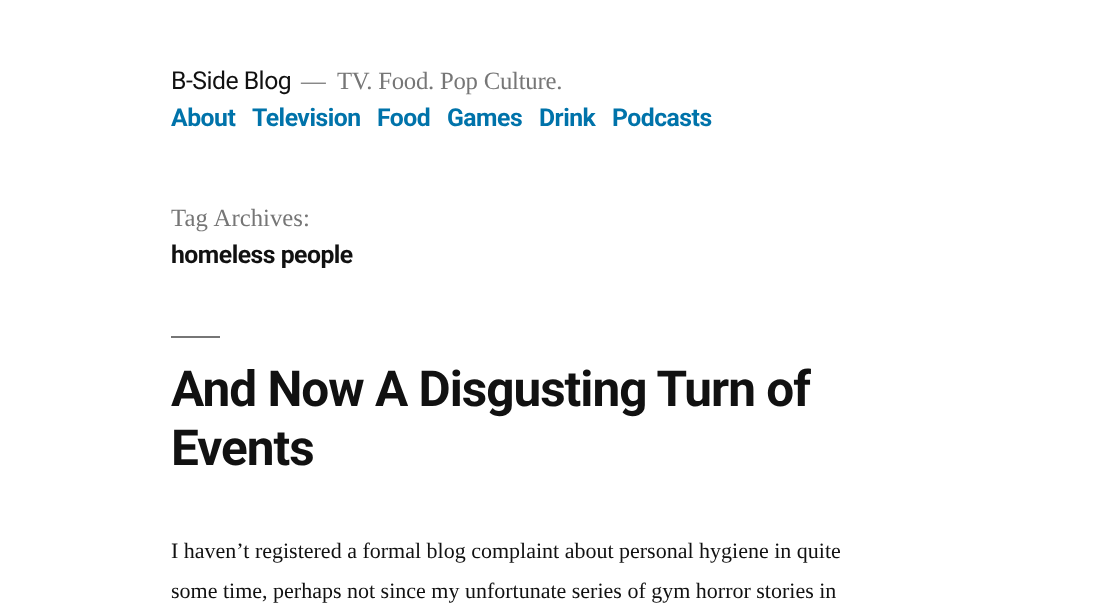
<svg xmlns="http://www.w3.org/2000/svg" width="1108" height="608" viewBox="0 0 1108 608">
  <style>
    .t1 { font: 24.75px Roboto; letter-spacing: -0.5px; fill: #111; }
    .t2 { font: 24.75px Liberation Serif; letter-spacing: -0.25px; fill: #767676; }
    .t3 { font: bold 24.75px Roboto; letter-spacing: -0.5px; fill: #0073aa; }
    .t4 { font: 24.75px Liberation Serif; fill: #767676; }
    .t5 { font: bold 24.75px Roboto; letter-spacing: -0.5px; fill: #111; }
    .t6 { font: bold 49.5px Roboto; letter-spacing: -1px; fill: #111; }
    .t7 { font: 22px Liberation Serif; fill: #111; }
  </style>
  <rect width="100%" height="100%" fill="#fff"/>
  <text x="171" y="89" class="t1">B-Side Blog</text>
  <text x="301" y="89" class="t2">—</text>
  <text x="337" y="89" class="t2">TV. Food. Pop Culture.</text>
  <text x="171" y="126" class="t3">About</text>
  <text x="252" y="126" class="t3">Television</text>
  <text x="377" y="126" class="t3">Food</text>
  <text x="447" y="126" class="t3">Games</text>
  <text x="539" y="126" class="t3">Drink</text>
  <text x="612" y="126" class="t3">Podcasts</text>
  <text x="171" y="226" word-spacing="1" class="t4">Tag Archives:</text>
  <text x="171" y="263" class="t5">homeless people</text>
  <rect x="171" y="336" width="49" height="2" fill="#767676"/>
  <text x="171" y="406" class="t6">And Now A Disgusting Turn of</text>
  <text x="171" y="465" class="t6">Events</text>
  <text x="171" y="558" class="t7">I haven’t registered a formal blog complaint about personal hygiene in quite</text>
  <text x="171" y="598" class="t7">some time, perhaps not since my unfortunate series of gym horror stories in</text>
</svg>
